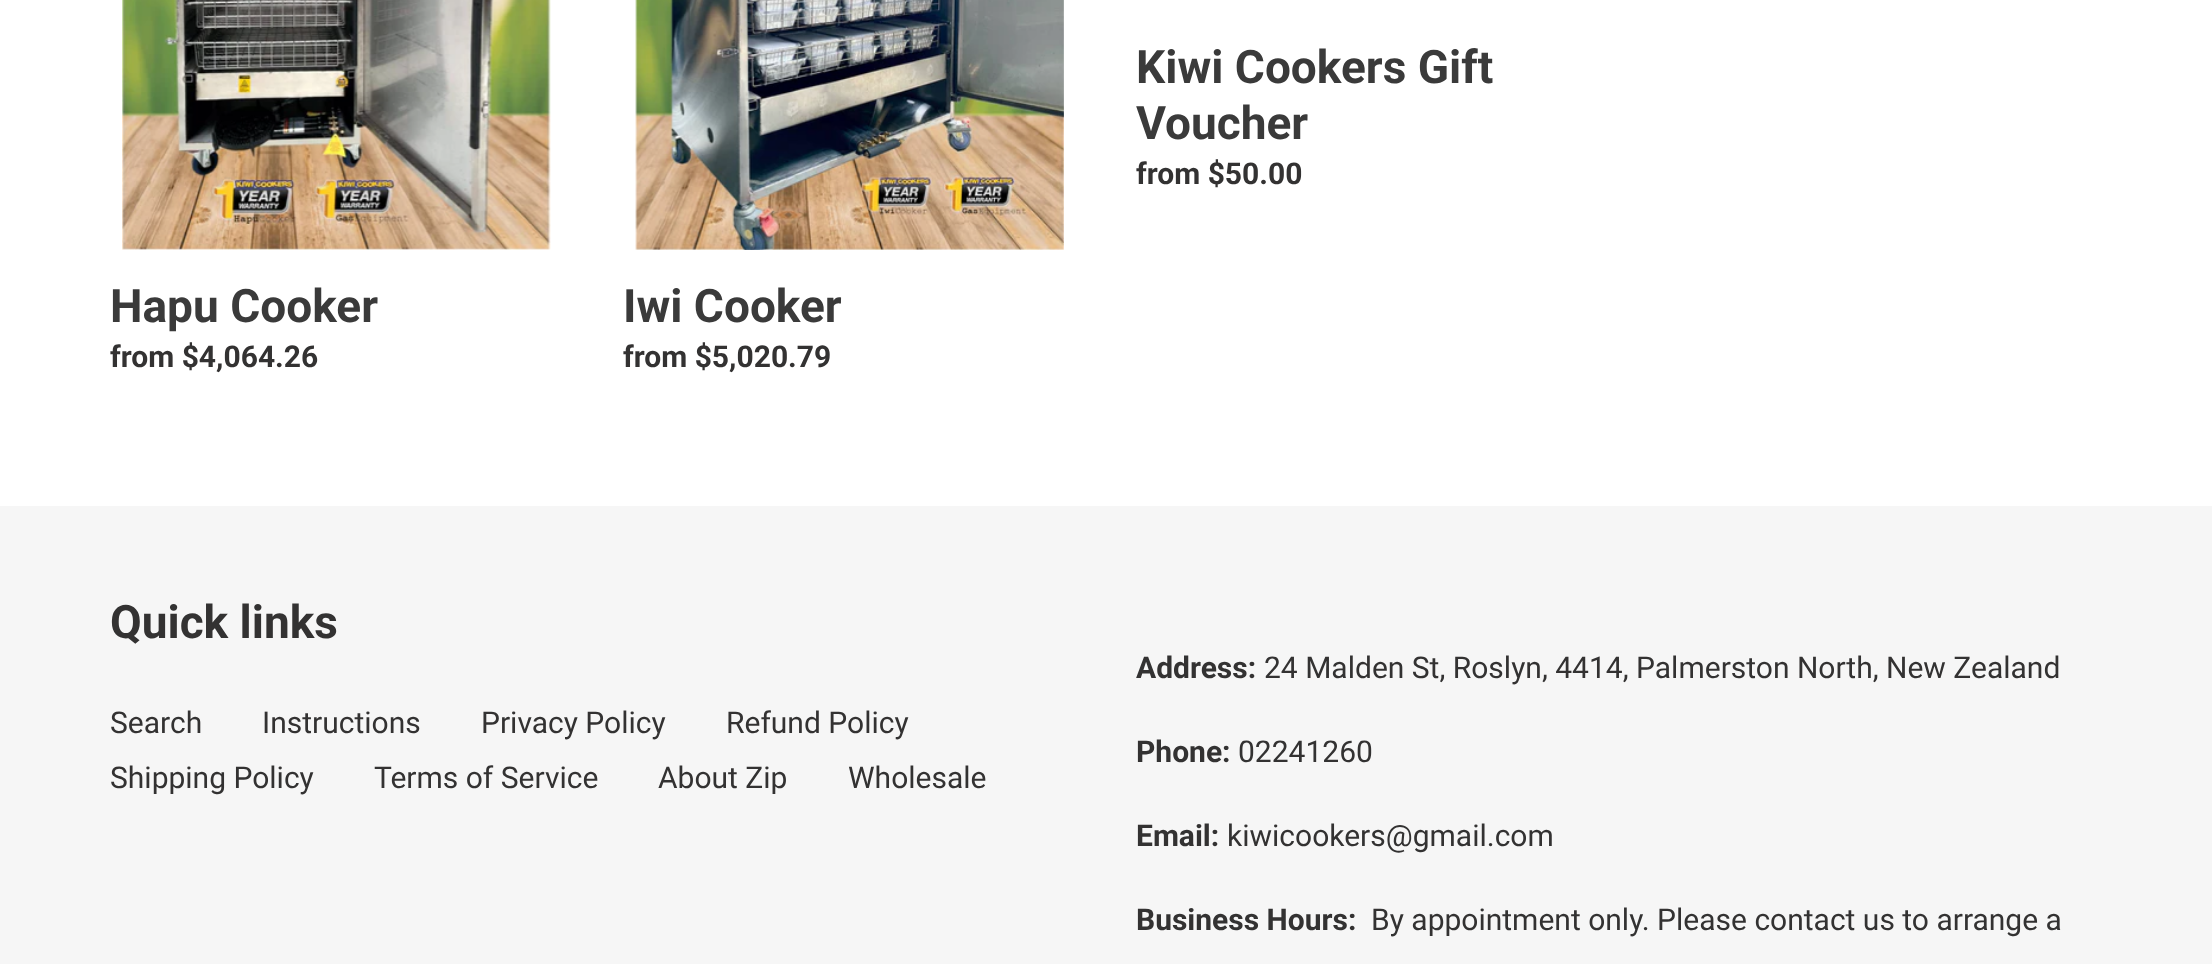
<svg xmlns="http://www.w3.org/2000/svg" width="2212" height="964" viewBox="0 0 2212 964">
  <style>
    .t1 { font: bold 46px Roboto; fill: #3a3a3a; }
    .t2 { font: bold 30px Roboto; fill: #333232; }
    .t3 { font: bold 46px Roboto; fill: #333232; }
    .t4 { font: 30px Roboto; fill: #333232; }
  </style>
  <rect width="100%" height="100%" fill="#fff"/>
  <text x="1136" y="83" class="t1">Kiwi Cookers Gift</text>
  <text x="1136" y="139" class="t1">Voucher</text>
  <text x="1136" y="184" class="t2">from $50.00</text>
  <image x="122" y="0" width="429" height="250" href="images/1.png"/>
  <text x="110" y="322" class="t1">Hapu Cooker</text>
  <text x="110" y="367" class="t2">from $4,064.26</text>
  <image x="635" y="0" width="429" height="250" href="images/2.png"/>
  <text x="623" y="322" class="t1">Iwi Cooker</text>
  <text x="623" y="367" class="t2">from $5,020.79</text>
  <rect x="0" y="506" width="2212" height="458" fill="#f6f6f6"/>
  <text x="110" y="638" class="t3">Quick links</text>
  <text x="110" y="733" class="t4">Search</text>
  <text x="262" y="733" class="t4">Instructions</text>
  <text x="481" y="733" class="t4">Privacy Policy</text>
  <text x="726" y="733" class="t4">Refund Policy</text>
  <text x="110" y="788" class="t4">Shipping Policy</text>
  <text x="374" y="788" class="t4">Terms of Service</text>
  <text x="658" y="788" class="t4">About Zip</text>
  <text x="848" y="788" class="t4">Wholesale</text>
  <text x="1136" y="678" class="t2">Address:</text>
  <text x="1264" y="678" class="t4">24 Malden St, Roslyn, 4414, Palmerston North, New Zealand</text>
  <text x="1136" y="762" class="t2">Phone:</text>
  <text x="1238" y="762" class="t4">02241260</text>
  <text x="1136" y="846" class="t2">Email:</text>
  <text x="1227" y="846" class="t4">kiwicookers@gmail.com</text>
  <text x="1136" y="930" class="t2">Business Hours:</text>
  <text x="1371" y="930" class="t4">By appointment only. Please contact us to arrange a</text>
</svg>
